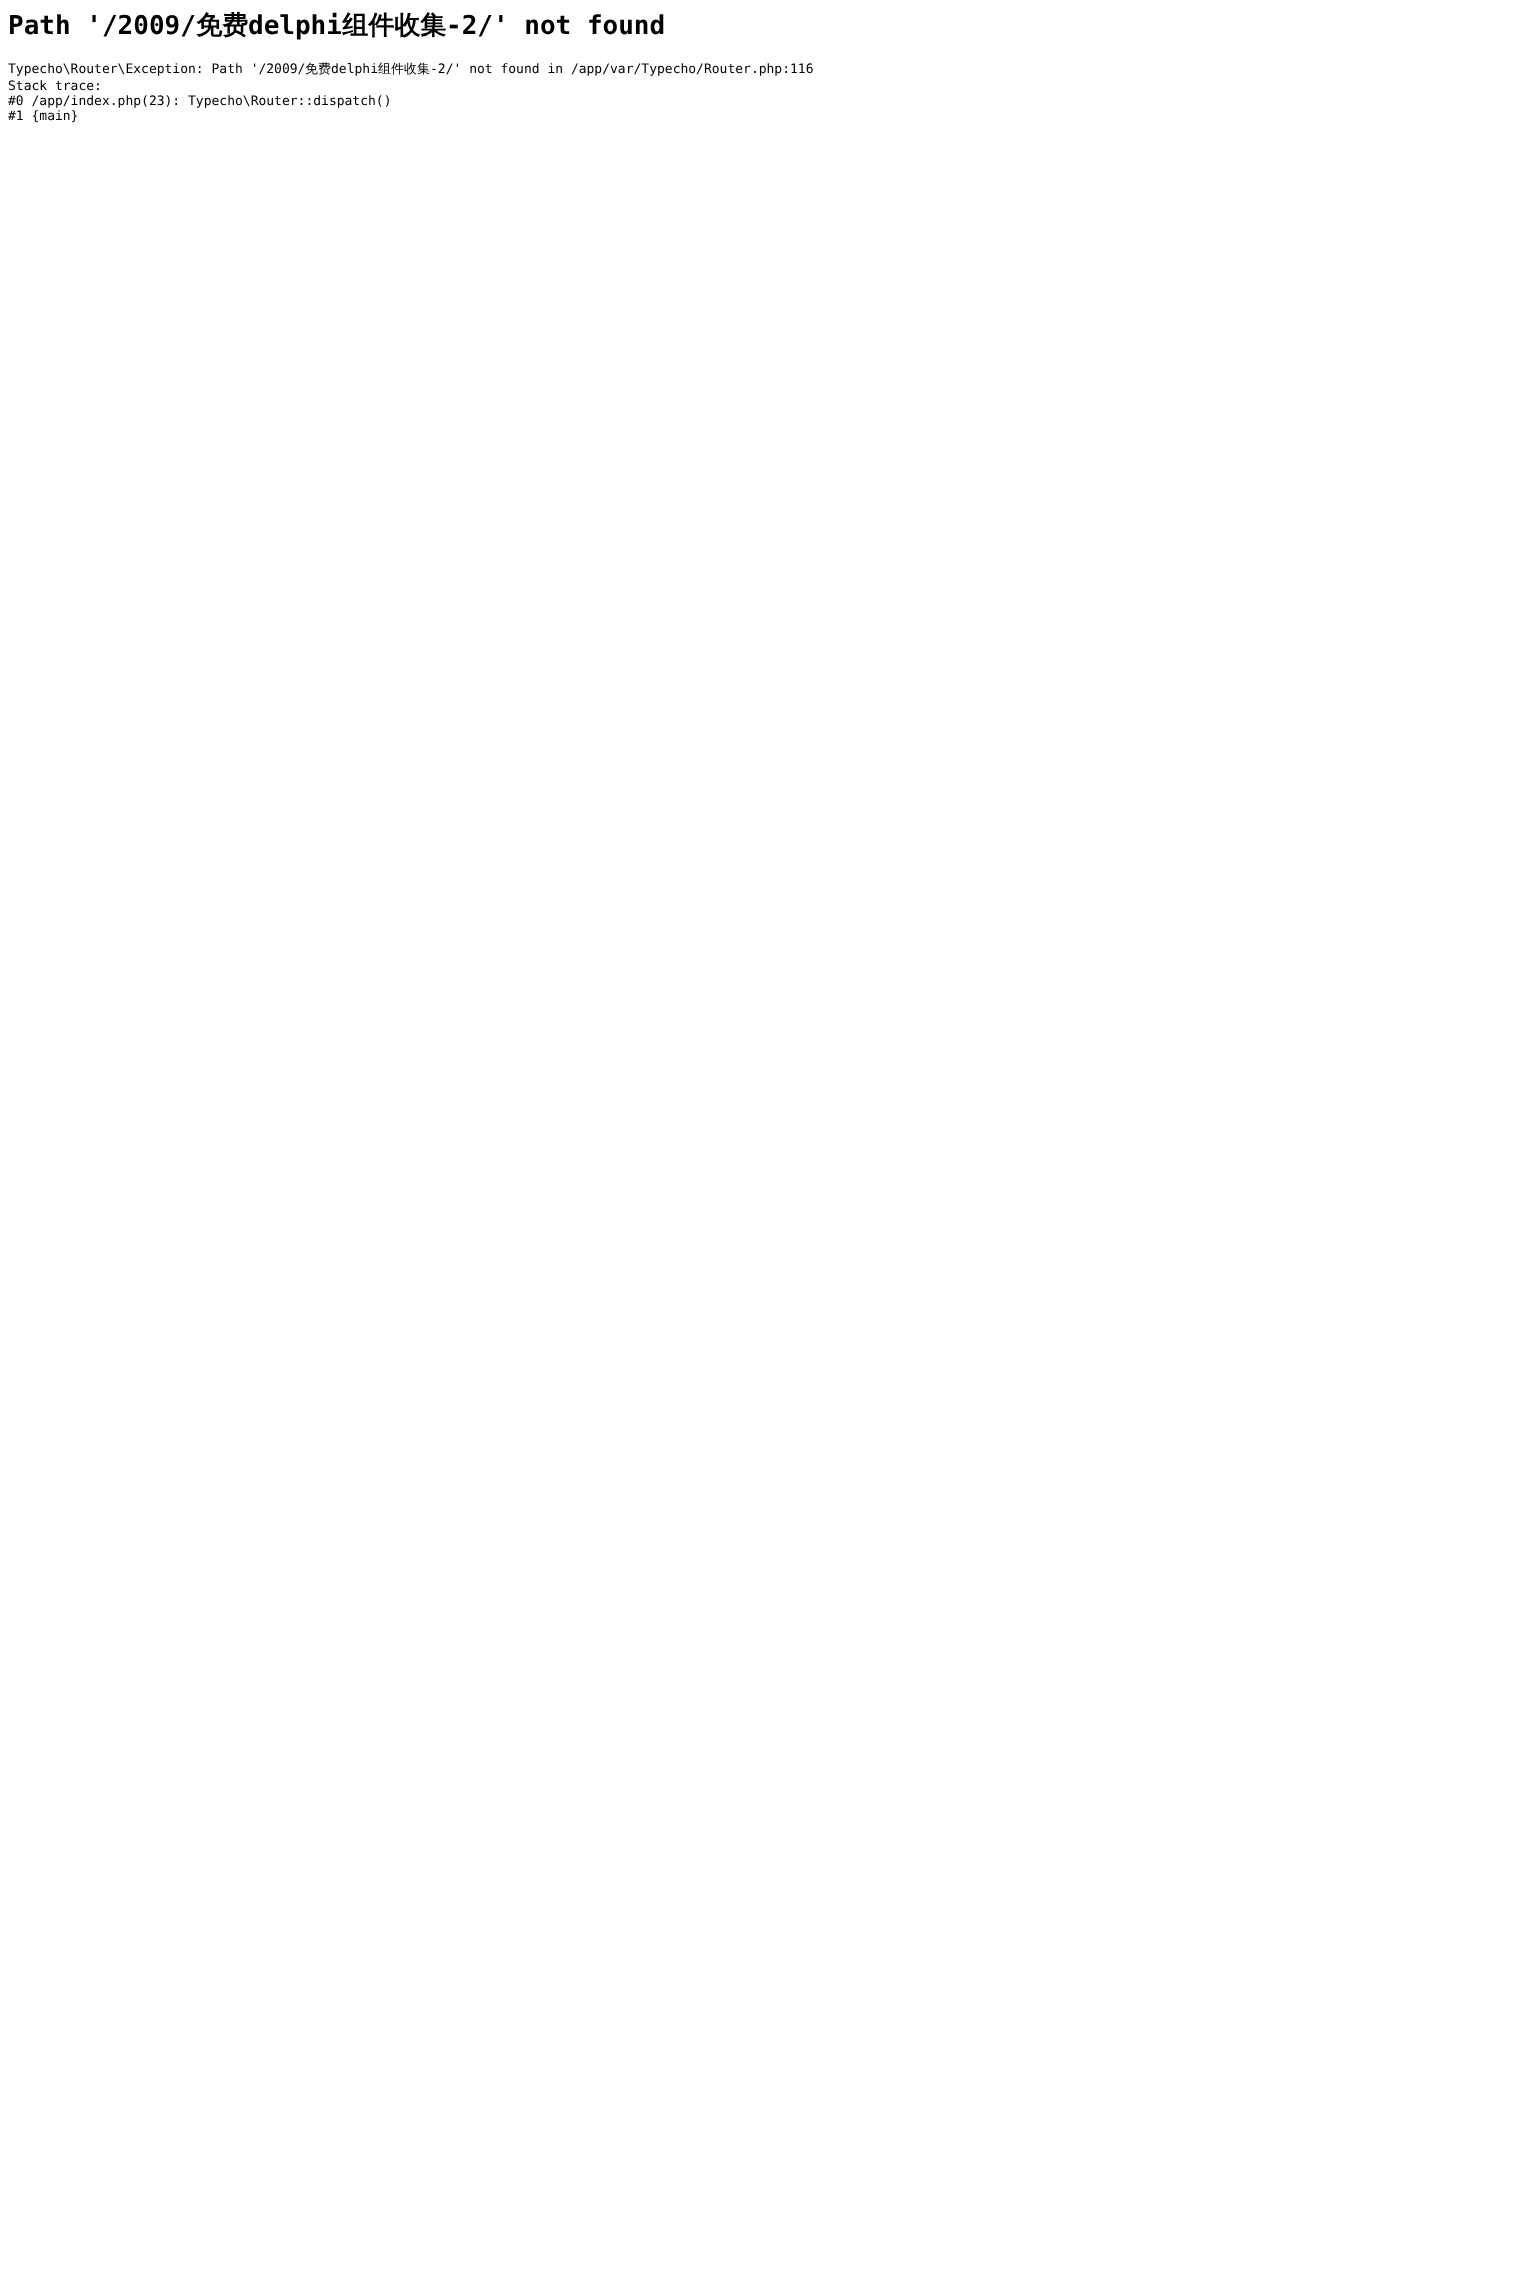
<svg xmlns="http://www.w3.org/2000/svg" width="1538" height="2283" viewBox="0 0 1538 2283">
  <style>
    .t1 { font: bold 26px DejaVu Sans Mono; fill: #000; }
    .t2 { font: bold 26px WenQuanYi Zen Hei; fill: #000; }
    .t3 { font: 13px DejaVu Sans Mono; fill: #000; }
    .t4 { font: 500 13px WenQuanYi Zen Hei; fill: #000; }
  </style>
  <rect width="100%" height="100%" fill="#fff"/>
  <text x="8" y="34" class="t1">Path '/2009/</text>
  <text x="196" y="34" class="t2">免费</text>
  <text x="248" y="34" class="t1">delphi</text>
  <text x="342" y="34" class="t2">组件收集</text>
  <text x="446" y="34" class="t1">-2/' not found</text>
  <text x="8" y="73" class="t3">Typecho\Router\Exception: Path '/2009/</text>
  <text x="305" y="73" class="t4">免费</text>
  <text x="331" y="73" class="t3">delphi</text>
  <text x="378" y="73" class="t4">组件收集</text>
  <text x="430" y="73" class="t3">-2/' not found in /app/var/Typecho/Router.php:116</text>
  <text x="8" y="90" class="t3">Stack trace:</text>
  <text x="8" y="105" class="t3">#0 /app/index.php(23): Typecho\Router::dispatch()</text>
  <text x="8" y="120" class="t3">#1 {main}</text>
</svg>
